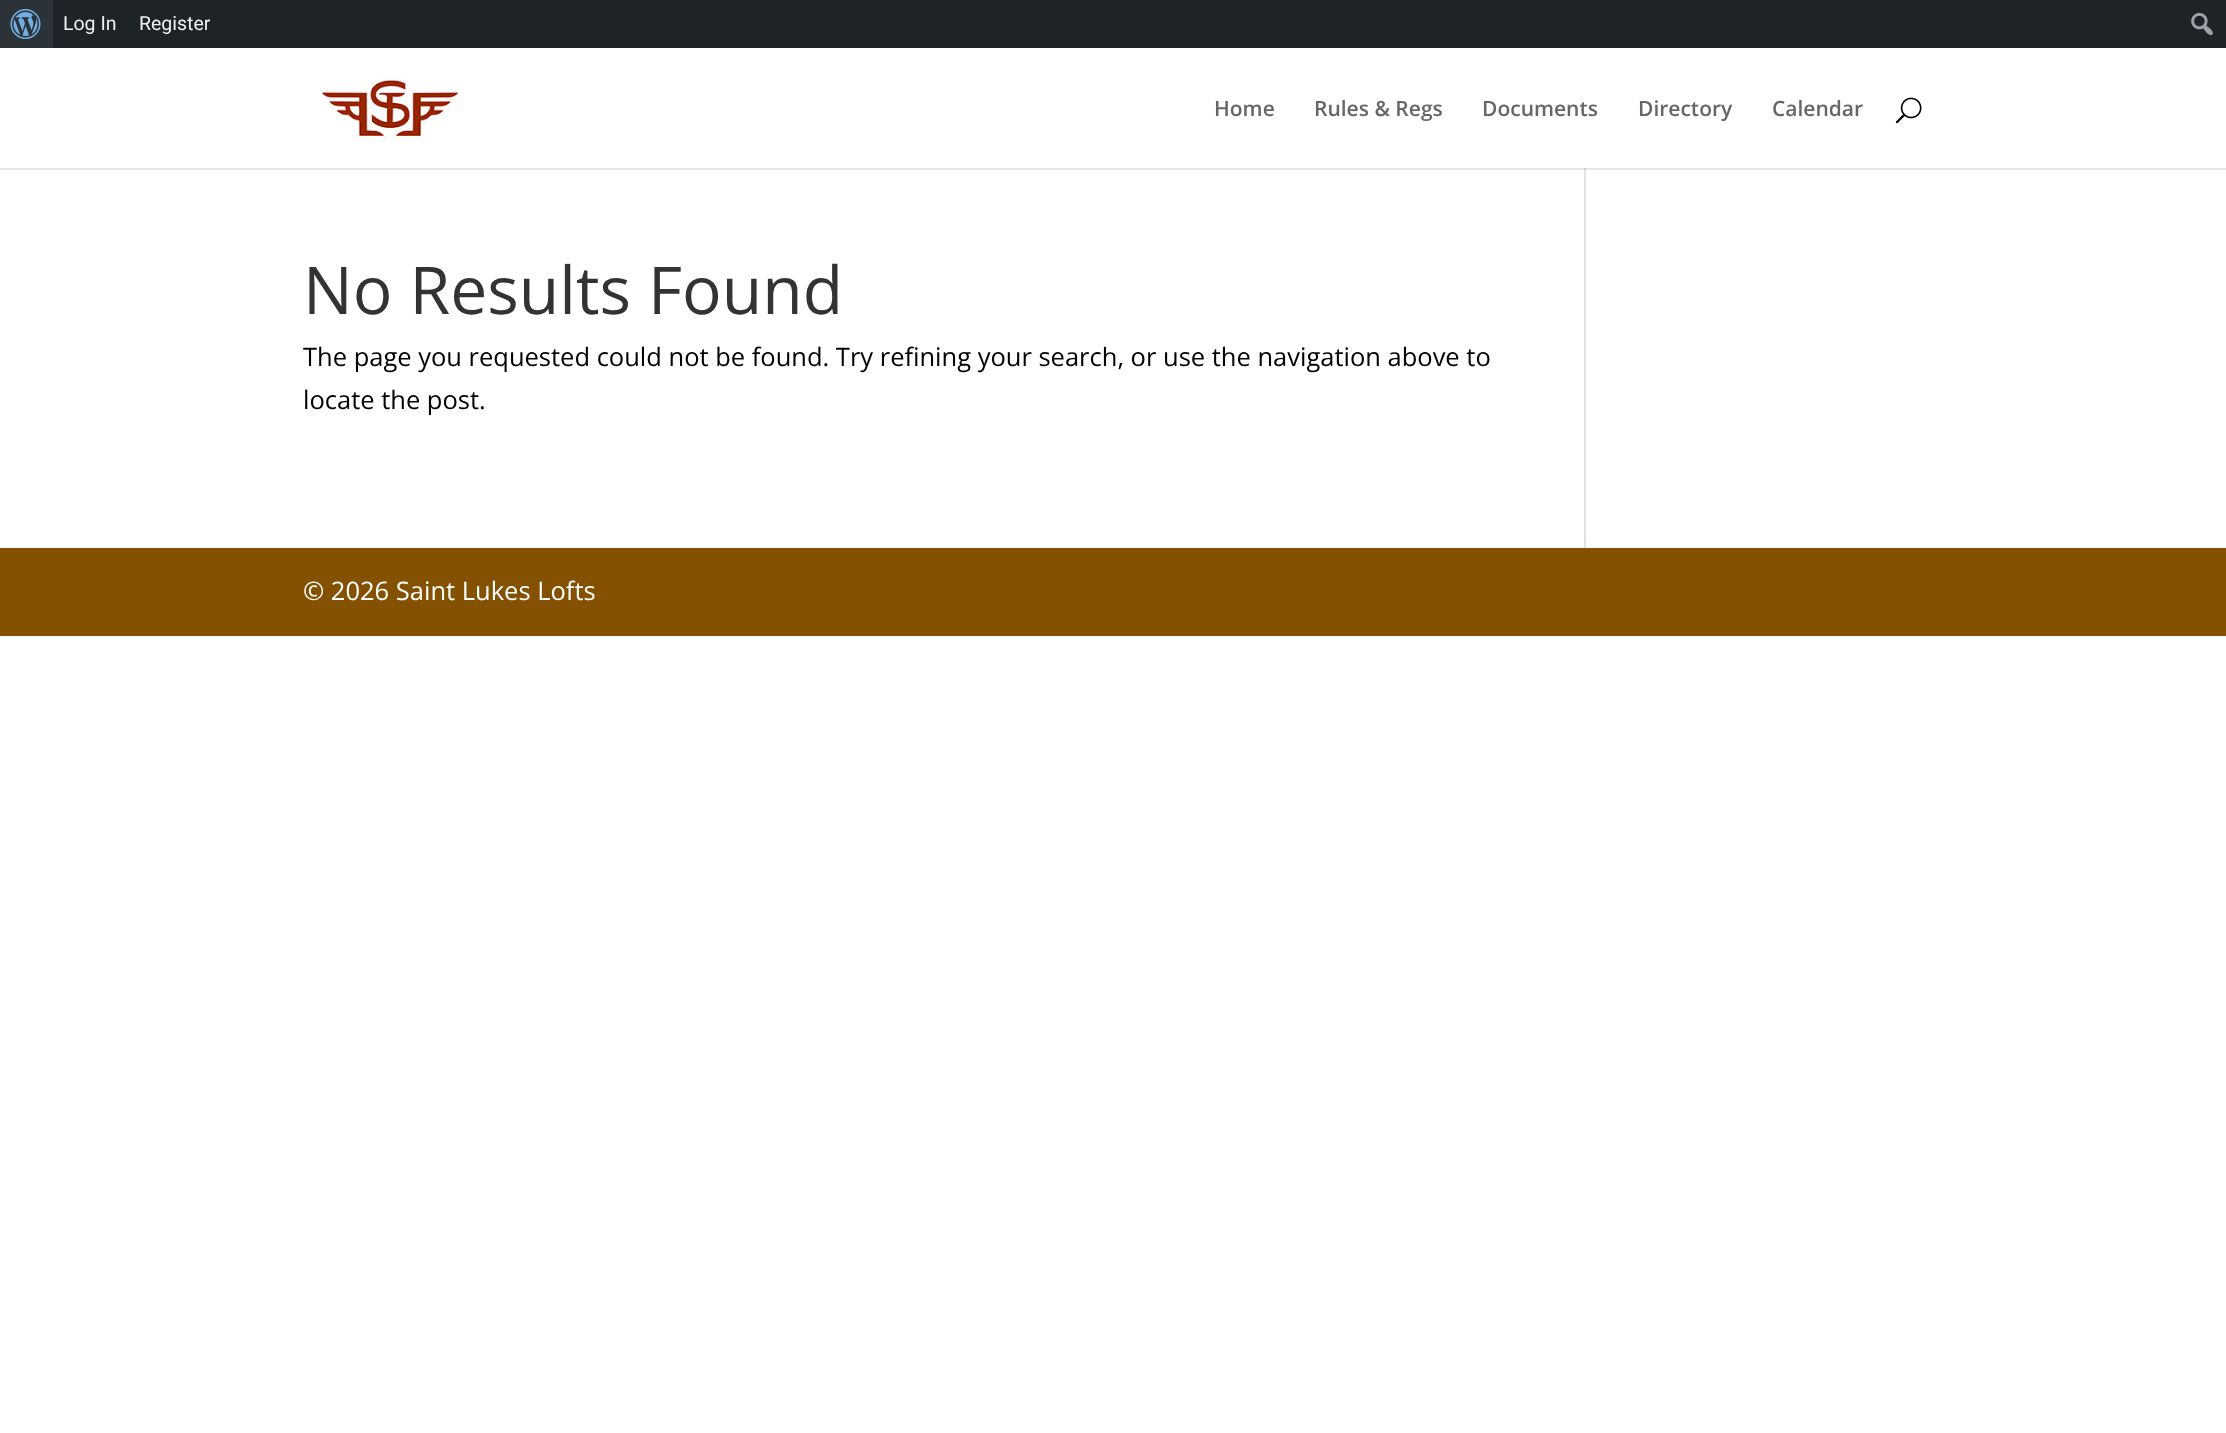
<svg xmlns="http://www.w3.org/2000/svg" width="2226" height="1433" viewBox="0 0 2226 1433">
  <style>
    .t1 { font: 19.5px Roboto; fill: #f0f0f1; }
    .t2 { font: 600 21px Open Sans; fill: #666; }
    .t3 { font: 66px Open Sans; fill: #333; }
    .t4 { font: 25.5px Open Sans; fill: #000; }
    .t5 { font: 25.5px Open Sans; fill: #fff; }
  </style>
  <rect width="100%" height="100%" fill="#fff"/>
  <rect x="0" y="168" width="2226" height="2" fill="#e6e6e6"/>
  <rect x="53" y="0" width="2173" height="48" fill="#1d2327"/>
  <rect x="0" y="0" width="53" height="48" fill="#2c3338"/>
  <image x="10" y="9" width="31" height="30" href="images/1.png"/>
  <text x="63" y="30" class="t1">Log In</text>
  <text x="139" y="30" class="t1">Register</text>
  <image x="2191" y="12" width="22" height="24" href="images/2.png"/>
  <image x="322" y="75" width="136" height="66" href="images/3.png"/>
  <text x="1214" y="116" class="t2">Home</text>
  <text x="1314" y="116" class="t2">Rules &amp; Regs</text>
  <text x="1482" y="116" class="t2">Documents</text>
  <text x="1638" y="116" class="t2">Directory</text>
  <text x="1772" y="116" class="t2">Calendar</text>
  <image x="1895" y="97" width="27" height="27" href="images/4.png"/>
  <text x="303" y="314" class="t3">No Results Found</text>
  <text x="303" y="366" class="t4">The page you requested could not be found. Try refining your search, or use the navigation above to</text>
  <text x="303" y="409" class="t4">locate the post.</text>
  <rect x="1584" y="168" width="2" height="380" fill="#e2e2e2"/>
  <rect x="1584" y="168" width="2" height="2" fill="#cbcbcb"/>
  <rect x="0" y="548" width="2226" height="88" fill="#845100"/>
  <text x="303" y="600" class="t5">© 2026 Saint Lukes Lofts</text>
</svg>
